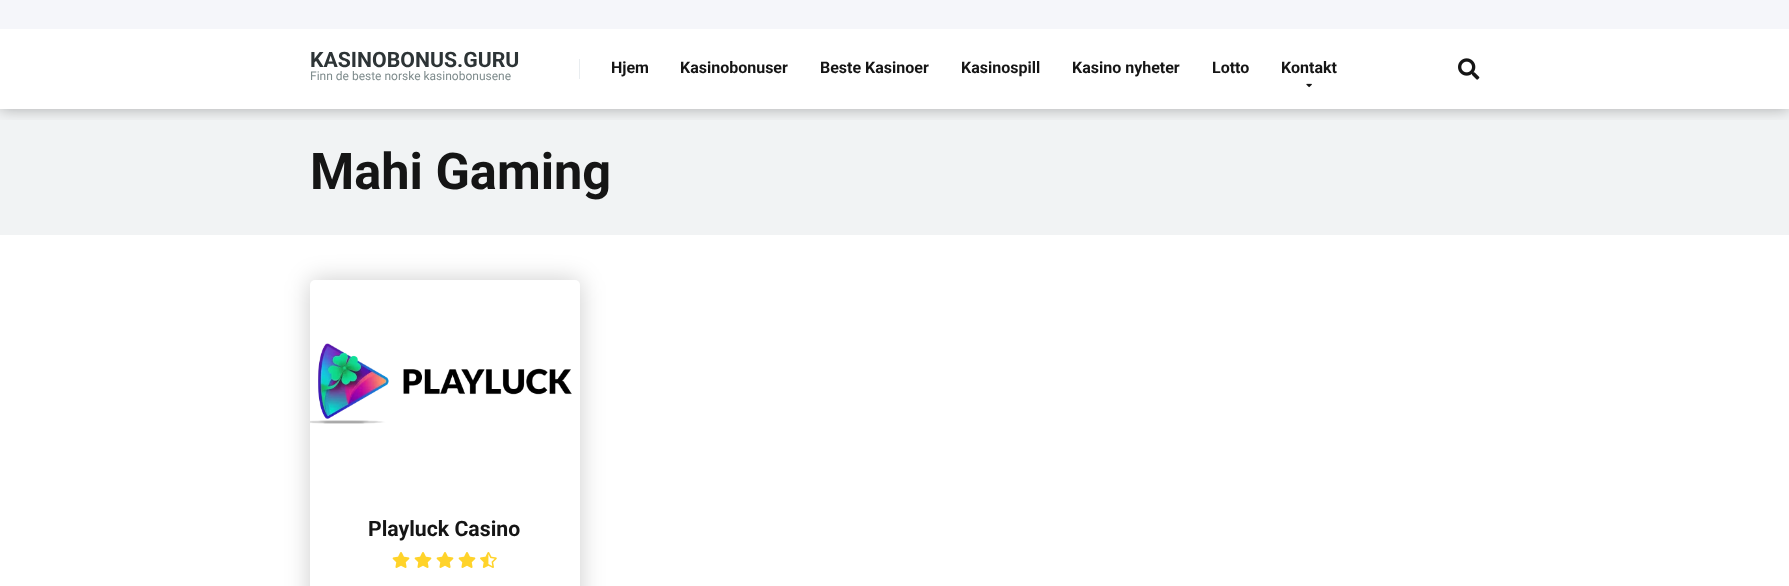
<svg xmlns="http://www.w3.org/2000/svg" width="1789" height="586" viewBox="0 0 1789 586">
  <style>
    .t1 { font: bold 21.25px Roboto; fill: #2d3436; }
    .t2 { font: 12px Roboto; fill: #7f8c8d; }
    .t3 { font: bold 16px Roboto; fill: #151515; }
    .t4 { font: bold 50.5px Roboto; fill: #151515; }
    .t5 { font: bold 21.25px Roboto; fill: #151515; }
  </style>
  <defs>
    <clipPath id="clip1"><rect x="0" y="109" width="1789" height="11"/></clipPath>
  </defs>
  <rect width="100%" height="100%" fill="#fff"/>
  <rect x="0" y="109" width="1789" height="126" fill="#f1f3f4"/>
  <g clip-path="url(#clip1)">
    <rect x="0" y="0" width="1789" height="109" fill="#0000004d" filter="blur(7.5px)"/>
  </g>
  <rect x="0" y="0" width="1789" height="29" fill="#f5f6fa"/>
  <text x="310" y="67" class="t1">KASINOBONUS.GURU</text>
  <rect x="579" y="59" width="1" height="20" fill="#e9edf0"/>
  <text x="310" y="80" class="t2">Finn de beste norske kasinobonusene</text>
  <text x="611" y="73" class="t3">Hjem</text>
  <text x="680" y="73" class="t3">Kasinobonuser</text>
  <text x="820" y="73" class="t3">Beste Kasinoer</text>
  <text x="961" y="73" class="t3">Kasinospill</text>
  <text x="1072" y="73" class="t3">Kasino nyheter</text>
  <text x="1212" y="73" class="t3">Lotto</text>
  <text x="1281" y="73" class="t3">Kontakt</text>
  <image x="1306" y="83" width="6" height="5" href="images/1.png"/>
  <image x="1458" y="58" width="22" height="22" href="images/2.png"/>
  <text x="310" y="189" class="t4">Mahi Gaming</text>
  <rect x="310" y="280" width="270" height="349" rx="5" fill="#00000033" filter="blur(12.5px)"/>
  <rect x="310" y="280" width="270" height="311" rx="5" fill="#fff"/>
  <image x="310" y="343" width="262" height="81" href="images/3.png"/>
  <text x="368" y="536" class="t5">Playluck Casino</text>
  <image x="392" y="552" width="18" height="16" href="images/4.png"/>
  <image x="414" y="552" width="18" height="16" href="images/4.png"/>
  <image x="436" y="552" width="18" height="16" href="images/4.png"/>
  <image x="458" y="552" width="18" height="16" href="images/4.png"/>
  <image x="480" y="552" width="17" height="16" href="images/5.png"/>
</svg>
